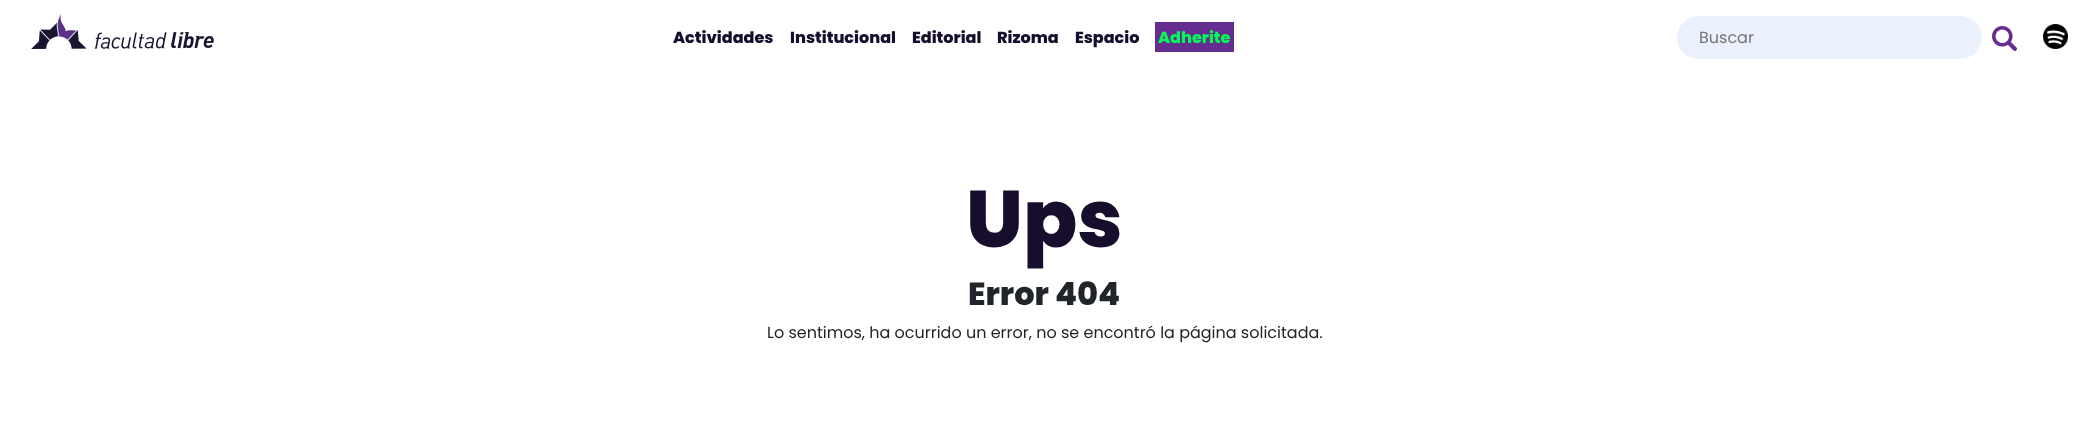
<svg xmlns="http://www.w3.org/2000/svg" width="2089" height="424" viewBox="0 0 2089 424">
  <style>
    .t1 { font: 800 16px Poppins; fill: #160e2c; }
    .t2 { font: 800 16px Poppins; fill: #05f856; }
    .t3 { font: 16px Poppins; fill: #757575; }
    .t4 { font: 800 80px Poppins; fill: #160e2c; }
    .t5 { font: 800 32px Poppins; fill: #212529; }
    .t6 { font: 16px Poppins; fill: #212529; }
  </style>
  <rect width="100%" height="100%" fill="#fff"/>
  <image x="31" y="14" width="183" height="35" href="images/1.png"/>
  <text x="673" y="43" class="t1">Actividades</text>
  <text x="790" y="43" class="t1">Institucional</text>
  <text x="912" y="43" class="t1">Editorial</text>
  <text x="997" y="43" class="t1">Rizoma</text>
  <text x="1075" y="43" class="t1">Espacio</text>
  <rect x="1155" y="22" width="79" height="30" fill="#662d91"/>
  <text x="1158" y="43" class="t2">Adherite</text>
  <image x="2043" y="24" width="25" height="25" href="images/2.png"/>
  <rect x="1677" y="16" width="305" height="43" rx="21.5" fill="#ebf1fc"/>
  <text x="1699" y="43" class="t3">Buscar</text>
  <image x="1992" y="26" width="25" height="25" href="images/3.png"/>
  <text x="966" y="247" class="t4">Ups</text>
  <text x="968" y="305" class="t5">Error 404</text>
  <text x="767" y="338" class="t6">Lo sentimos, ha ocurrido un error, no se encontró la página solicitada.</text>
</svg>
